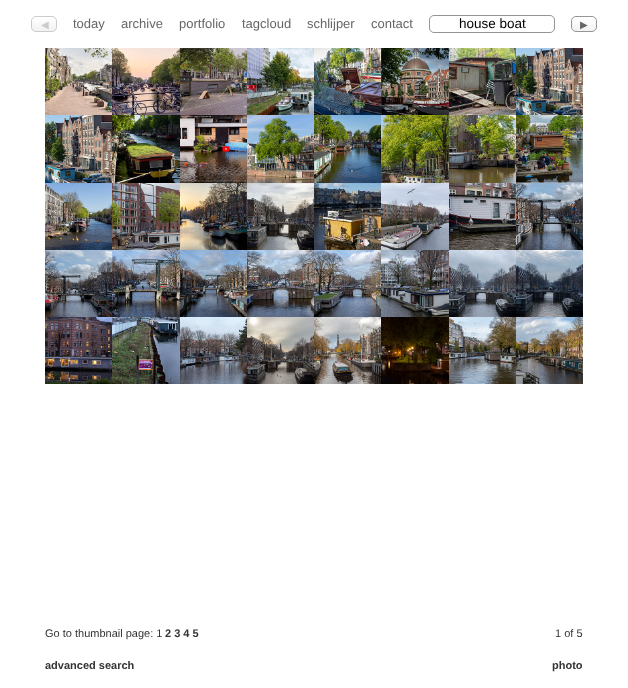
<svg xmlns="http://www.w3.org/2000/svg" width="628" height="688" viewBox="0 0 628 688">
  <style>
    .t1 { font: 10px DejaVu Sans; fill: #ccc; }
    .t2 { font: 13px Liberation Sans; fill: #666; }
    .t3 { font: 13.5px Liberation Sans; fill: #000; }
    .t4 { font: 10px DejaVu Sans; fill: #666; }
    .t5 { font: 11px Liberation Sans; fill: #333; }
    .t6 { font: bold 11px Liberation Sans; fill: #333; }
  </style>
  <defs>
    <clipPath id="clip1"><rect x="31" y="16" width="26" height="16" rx="5"/></clipPath>
    <linearGradient id="g1" gradientUnits="userSpaceOnUse" x1="44" y1="17" x2="44" y2="31"><stop offset="0" stop-color="#fff"/><stop offset="1" stop-color="#f2f2f2"/></linearGradient>
    <clipPath id="clip2"><rect x="571" y="16" width="26" height="16" rx="5"/></clipPath>
    <linearGradient id="g2" gradientUnits="userSpaceOnUse" x1="584" y1="17" x2="584" y2="31"><stop offset="0" stop-color="#fff"/><stop offset="1" stop-color="#f2f2f2"/></linearGradient>
  </defs>
  <rect width="100%" height="100%" fill="#fff"/>
  <g clip-path="url(#clip1)">
    <rect x="31" y="17" width="26" height="14" fill="url(#g1)"/>
  </g>
  <rect x="31.5" y="16.5" width="25" height="15" rx="4.5" fill="none" stroke="#ccc"/>
  <text x="41" y="28" class="t1">◀</text>
  <text x="73" y="28" class="t2">today</text>
  <text x="121" y="28" class="t2">archive</text>
  <text x="179" y="28" class="t2">portfolio</text>
  <text x="242" y="28" class="t2">tagcloud</text>
  <text x="307" y="28" class="t2">schlijper</text>
  <text x="371" y="28" class="t2">contact</text>
  <rect x="429.5" y="15.5" width="125" height="17" rx="4.5" fill="none" stroke="#959595"/>
  <text x="459" y="28" class="t3">house boat</text>
  <g clip-path="url(#clip2)">
    <rect x="571" y="17" width="26" height="14" fill="url(#g2)"/>
  </g>
  <rect x="571.5" y="16.5" width="25" height="15" rx="4.5" fill="none" stroke="#959595"/>
  <text x="580" y="28" class="t4">▶</text>
  <image x="45" y="48" width="67" height="67" href="images/1.png"/>
  <image x="112" y="48" width="68" height="67" href="images/2.png"/>
  <image x="180" y="48" width="67" height="67" href="images/3.png"/>
  <image x="247" y="48" width="67" height="67" href="images/4.png"/>
  <image x="314" y="48" width="67" height="67" href="images/5.png"/>
  <image x="381" y="48" width="68" height="67" href="images/6.png"/>
  <image x="449" y="48" width="67" height="67" href="images/7.png"/>
  <image x="516" y="48" width="67" height="67" href="images/8.png"/>
  <image x="45" y="115" width="67" height="68" href="images/9.png"/>
  <image x="112" y="115" width="68" height="68" href="images/10.png"/>
  <image x="180" y="115" width="67" height="68" href="images/11.png"/>
  <image x="247" y="115" width="67" height="68" href="images/12.png"/>
  <image x="314" y="115" width="67" height="68" href="images/13.png"/>
  <image x="381" y="115" width="68" height="68" href="images/14.png"/>
  <image x="449" y="115" width="67" height="68" href="images/15.png"/>
  <image x="516" y="115" width="67" height="68" href="images/16.png"/>
  <image x="45" y="183" width="67" height="67" href="images/17.png"/>
  <image x="112" y="183" width="68" height="67" href="images/18.png"/>
  <image x="180" y="183" width="67" height="67" href="images/19.png"/>
  <image x="247" y="183" width="67" height="67" href="images/20.png"/>
  <image x="314" y="183" width="67" height="67" href="images/21.png"/>
  <image x="381" y="183" width="68" height="67" href="images/22.png"/>
  <image x="449" y="183" width="67" height="67" href="images/23.png"/>
  <image x="516" y="183" width="67" height="67" href="images/24.png"/>
  <image x="45" y="250" width="67" height="67" href="images/25.png"/>
  <image x="112" y="250" width="68" height="67" href="images/26.png"/>
  <image x="180" y="250" width="67" height="67" href="images/27.png"/>
  <image x="247" y="250" width="67" height="67" href="images/28.png"/>
  <image x="314" y="250" width="67" height="67" href="images/29.png"/>
  <image x="381" y="250" width="68" height="67" href="images/30.png"/>
  <image x="449" y="250" width="67" height="67" href="images/31.png"/>
  <image x="516" y="250" width="67" height="67" href="images/32.png"/>
  <image x="45" y="317" width="67" height="67" href="images/33.png"/>
  <image x="112" y="317" width="68" height="67" href="images/34.png"/>
  <image x="180" y="317" width="67" height="67" href="images/35.png"/>
  <image x="247" y="317" width="67" height="67" href="images/36.png"/>
  <image x="314" y="317" width="67" height="67" href="images/37.png"/>
  <image x="381" y="317" width="68" height="67" href="images/38.png"/>
  <image x="449" y="317" width="67" height="67" href="images/39.png"/>
  <image x="516" y="317" width="67" height="67" href="images/40.png"/>
  <text x="45" y="637" class="t5">Go to thumbnail page: 1</text>
  <text x="165" y="637" class="t6">2 3 4 5</text>
  <text x="45" y="669" class="t6">advanced search</text>
  <text x="555" y="637" class="t5">1 of 5</text>
  <text x="552" y="669" class="t6">photo</text>
</svg>
